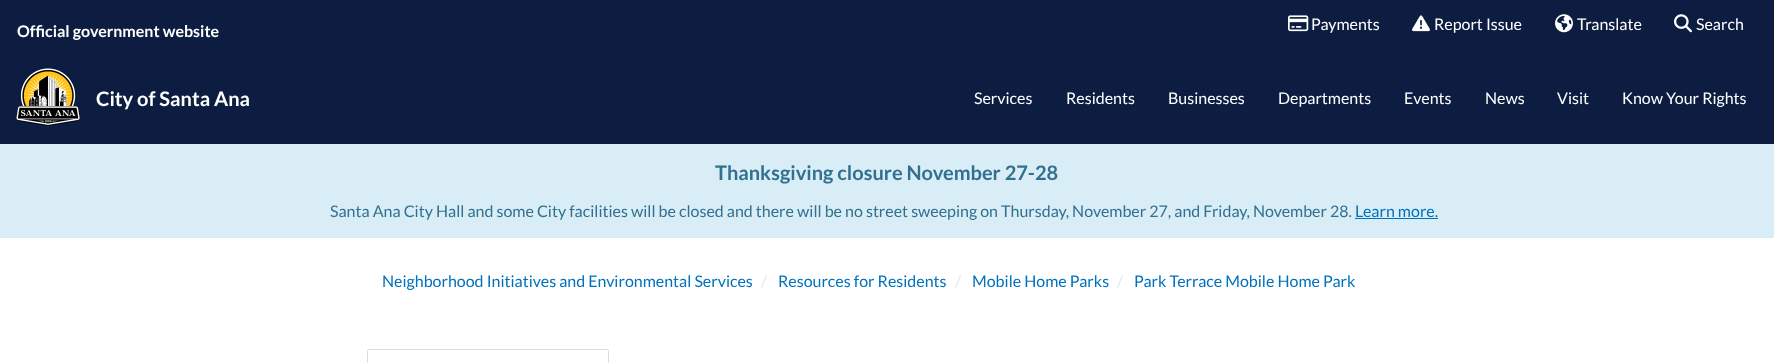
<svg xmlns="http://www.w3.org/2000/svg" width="1774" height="363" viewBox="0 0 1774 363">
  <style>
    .t1 { font: bold 16px Lato; fill: #fff; }
    .t2 { font: 16px Lato; fill: #fff; }
    .t3 { font: bold 20px Lato; fill: #fff; }
    .t4 { font: bold 20px Lato; fill: #31708f; }
    .t5 { font: 16px Lato; fill: #31708f; }
    .t6 { font: 16px Lato; fill: #0071bc; }
    .t7 { font: 16px Lato; fill: #e6e6e6; }
  </style>
  <rect width="100%" height="100%" fill="#fff"/>
  <rect x="0" y="0" width="1774" height="144" fill="#0d1d41"/>
  <text x="17" y="37" class="t1">Official government website</text>
  <image x="1288" y="15" width="21" height="17" href="images/1.png"/>
  <text x="1311" y="30" class="t2">Payments</text>
  <image x="1412" y="15" width="18" height="17" href="images/2.png"/>
  <text x="1434" y="30" class="t2">Report Issue</text>
  <image x="1555" y="14" width="18" height="19" href="images/3.png"/>
  <text x="1577" y="30" class="t2">Translate</text>
  <image x="1674" y="14" width="18" height="19" href="images/4.png"/>
  <text x="1696" y="30" class="t2">Search</text>
  <image x="16" y="68" width="64" height="58" href="images/5.png"/>
  <text x="96" y="106" class="t3">City of Santa Ana</text>
  <text x="974" y="104" class="t2">Services</text>
  <text x="1066" y="104" class="t2">Residents</text>
  <text x="1168" y="104" class="t2">Businesses</text>
  <text x="1278" y="104" class="t2">Departments</text>
  <text x="1404" y="104" class="t2">Events</text>
  <text x="1485" y="104" class="t2">News</text>
  <text x="1557" y="104" class="t2">Visit</text>
  <text x="1622" y="104" class="t2">Know Your Rights</text>
  <rect x="0" y="144" width="1774" height="94" fill="#d9edf7"/>
  <text x="715" y="180" class="t4">Thanksgiving closure November 27-28</text>
  <text x="330" y="217" class="t5">Santa Ana City Hall and some City facilities will be closed and there will be no street sweeping on Thursday, November 27, and Friday, November 28.</text>
  <text x="1355" y="217" class="t6">Learn more.</text>
  <rect x="1355" y="218" width="83" height="1" fill="#0071bc"/>
  <text x="382" y="287" class="t6">Neighborhood Initiatives and Environmental Services</text>
  <text x="761" y="287" class="t7">/</text>
  <text x="778" y="287" class="t6">Resources for Residents</text>
  <text x="955" y="287" class="t7">/</text>
  <text x="972" y="287" class="t6">Mobile Home Parks</text>
  <text x="1117" y="287" class="t7">/</text>
  <text x="1134" y="287" class="t6">Park Terrace Mobile Home Park</text>
  <path d="M369 349.5H607C608 349.5 608.5 350 608.5 351V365.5H367.5V351C367.5 350 368 349.5 369 349.5Z" fill="none" stroke="#ddd"/>
</svg>
